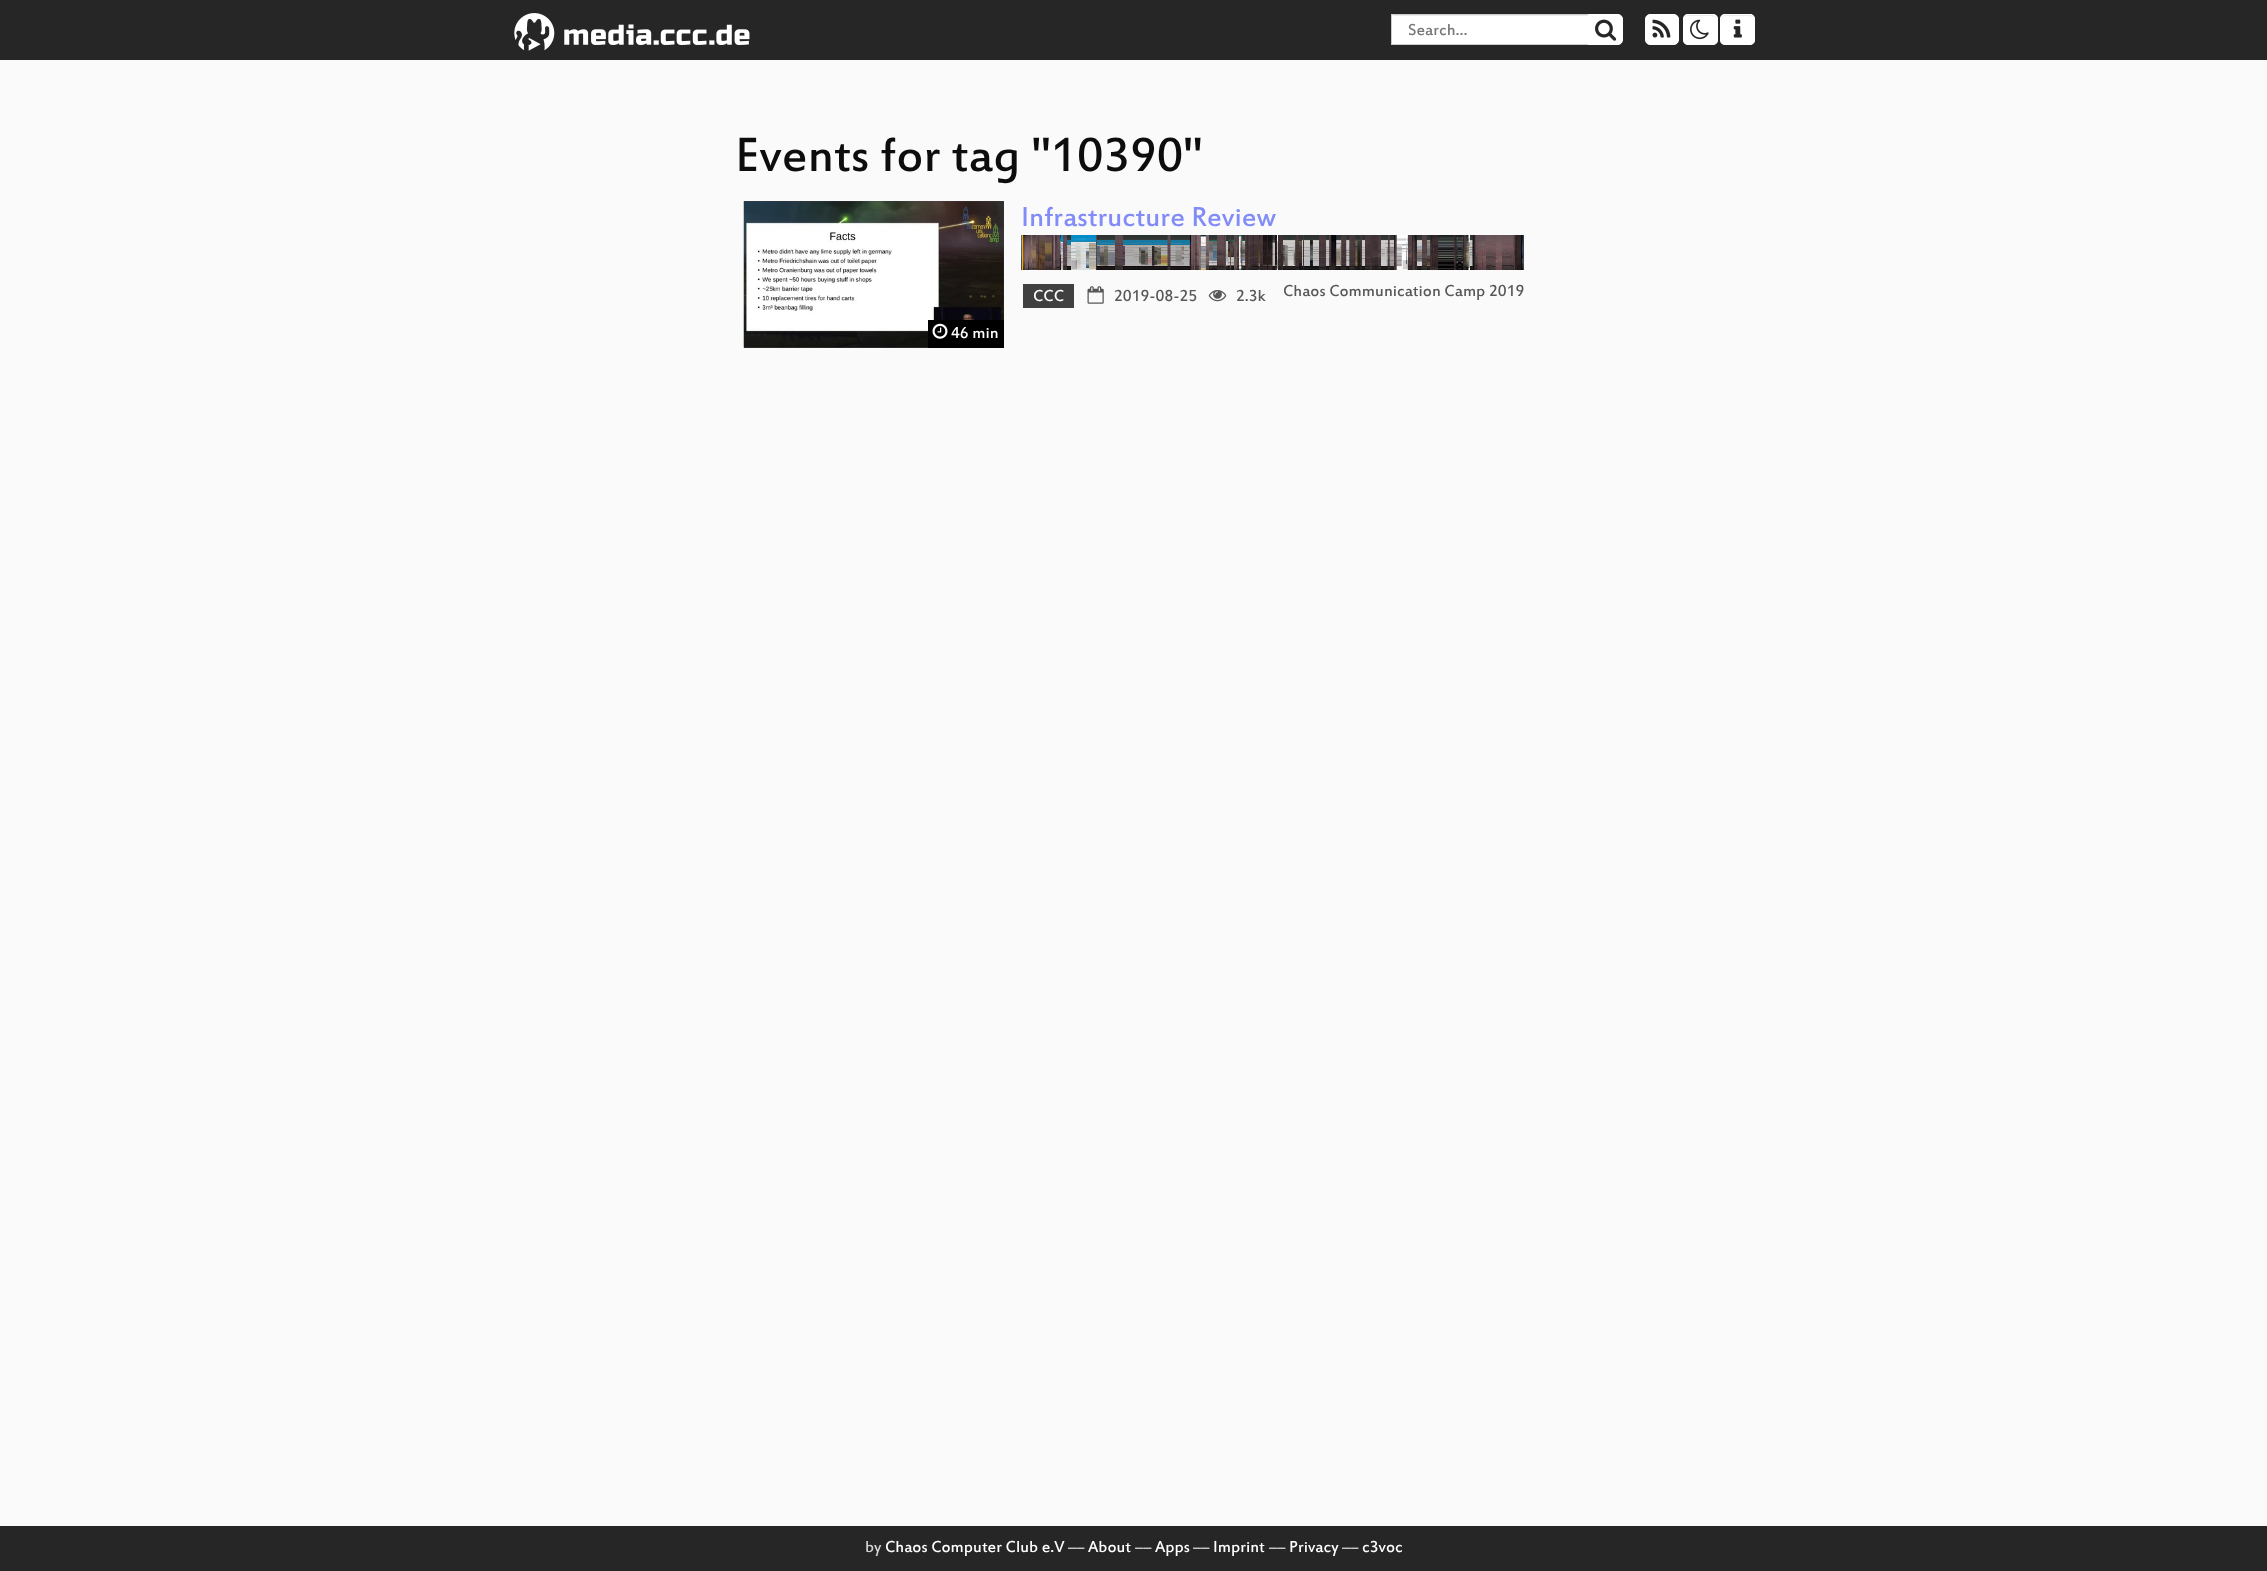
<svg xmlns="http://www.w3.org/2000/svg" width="2267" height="1571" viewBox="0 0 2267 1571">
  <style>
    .t1 { font: 17.5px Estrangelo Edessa; fill: #777; }
    .t2 { font: 52.5px Estrangelo Edessa; fill: #0d0d0d; }
    .t3 { font: 30px Estrangelo Edessa; fill: #818cf8; }
    .t4 { font: 17.5px Estrangelo Edessa; fill: #fff; }
    .t5 { font: 17.5px Estrangelo Edessa; fill: #585858; }
    .t6 { font: 17.5px Estrangelo Edessa; fill: #d4d4d4; }
  </style>
  <rect width="100%" height="100%" fill="#fafafa"/>
  <rect x="0" y="0" width="2267" height="60" fill="#262626"/>
  <image x="514" y="13" width="236" height="38" href="images/1.png"/>
  <rect x="1392" y="15" width="196" height="29" fill="#fff"/>
  <rect x="1393" y="15" width="195" height="1" fill="#ececec"/>
  <rect x="1391.5" y="14.5" width="197" height="30" fill="none" stroke="#ccc"/>
  <text x="1408" y="35" class="t1">Search…</text>
  <path d="M1588.5 14.5H1618C1620.5 14.5 1622.5 16.5 1622.5 19V40C1622.5 42.5 1620.5 44.5 1618 44.5H1588.5Z" fill="#fff" stroke="#fff"/>
  <image x="1595" y="19" width="22" height="22" href="images/2.png"/>
  <rect x="1645.5" y="14.5" width="33" height="30" rx="4.5" fill="#fff" stroke="#fff"/>
  <image x="1652" y="19" width="19" height="19" href="images/3.png"/>
  <rect x="1683" y="14" width="35" height="31" rx="5" fill="#fff"/>
  <path d="M1688 16H1708C1713.5 16 1715.5 16.5 1716 19C1716 16.5 1714 15 1712 15H1688C1686 15 1684 17 1684 19V19.5C1684 17.5 1685 16 1688 16ZM1684 41V38Z" fill="#ececec" fill-rule="evenodd"/>
  <rect x="1683.5" y="14.5" width="34" height="30" rx="4.5" fill="none" stroke="#fff"/>
  <image x="1690" y="19" width="19" height="21" href="images/4.png"/>
  <rect x="1720" y="14" width="35" height="31" rx="5" fill="#fff"/>
  <path d="M1725 16H1746C1752.5 16 1754 17 1754 21V19C1754 17 1752 15 1750 15H1725C1723 15 1721 17 1721 19V24C1721 21 1721 16 1725 16ZM1721 41V38Z" fill="#ececec" fill-rule="evenodd"/>
  <rect x="1720.5" y="14.5" width="34" height="30" rx="4.5" fill="none" stroke="#fff"/>
  <image x="1733" y="19" width="9" height="19" href="images/5.png"/>
  <text x="735" y="171" class="t2">Events for tag "10390"</text>
  <text x="1021" y="226" class="t3">Infrastructure Review</text>
  <image x="1021" y="235" width="503" height="35" href="images/6.png"/>
  <rect x="1023" y="284" width="51" height="24" fill="#404040"/>
  <text x="1033" y="301" class="t4">CCC</text>
  <image x="1087" y="286" width="17" height="18" href="images/7.png"/>
  <text x="1114" y="301" class="t5">2019-08-25</text>
  <image x="1208" y="290" width="19" height="12" href="images/8.png"/>
  <text x="1236" y="301" class="t5">2.3k</text>
  <text x="1283" y="296" class="t5">Chaos Communication Camp 2019</text>
  <rect x="744" y="201" width="260" height="147" fill="#404040"/>
  <image x="743" y="201" width="261" height="147" href="images/9.png"/>
  <rect x="928" y="320" width="76" height="28" fill="#000"/>
  <image x="932" y="323" width="16" height="16" href="images/10.png"/>
  <text x="951" y="338" class="t4">46 min</text>
  <rect x="0" y="1526" width="2267" height="45" fill="#262626"/>
  <text x="865" y="1552" class="t6">by</text>
  <text x="885" y="1552" class="t4">Chaos Computer Club e.V</text>
  <text x="1068" y="1552" class="t6">––</text>
  <text x="1088" y="1552" class="t4">About</text>
  <text x="1135" y="1552" class="t6">––</text>
  <text x="1155" y="1552" class="t4">Apps</text>
  <text x="1193" y="1552" class="t6">––</text>
  <text x="1213" y="1552" class="t4">Imprint</text>
  <text x="1269" y="1552" class="t6">––</text>
  <text x="1289" y="1552" class="t4">Privacy</text>
  <text x="1342" y="1552" class="t6">––</text>
  <text x="1362" y="1552" class="t4">c3voc</text>
</svg>
